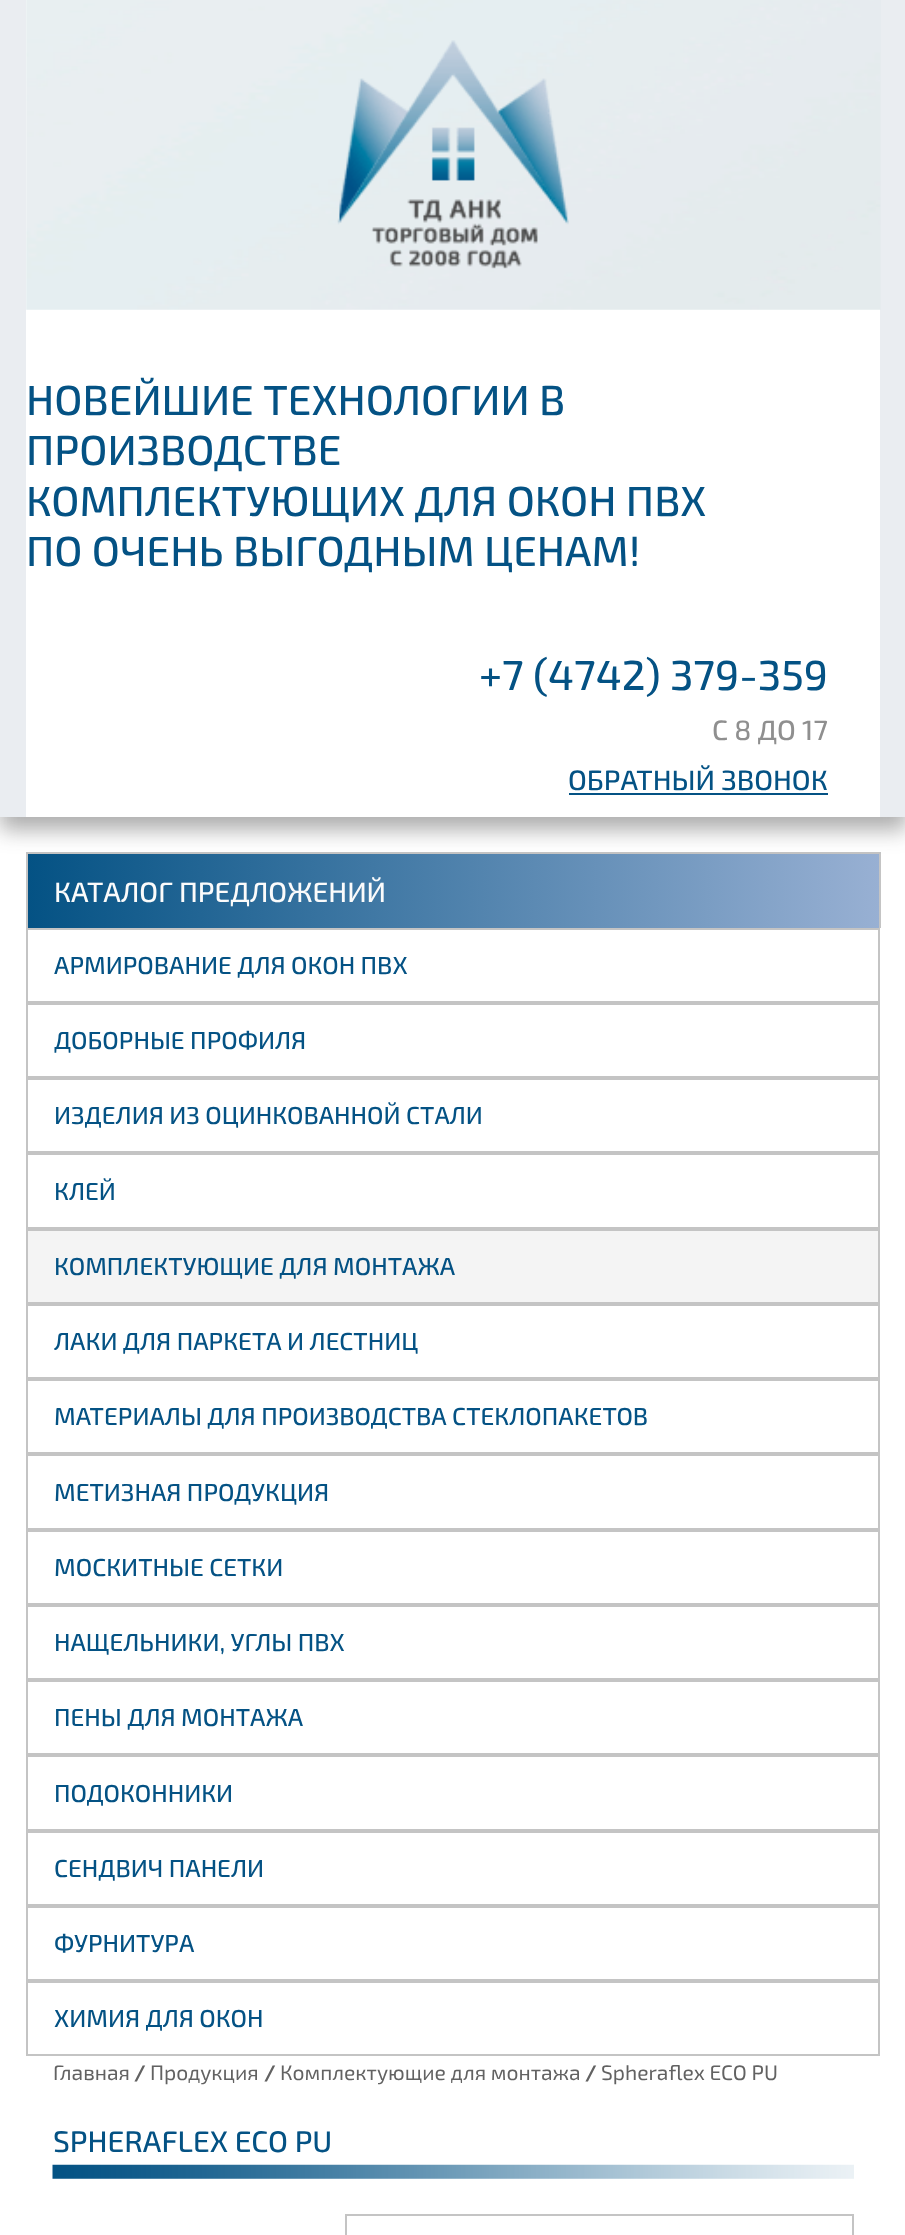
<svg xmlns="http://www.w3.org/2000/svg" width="905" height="2235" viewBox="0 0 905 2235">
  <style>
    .t1 { font: 500 42px 'Exo 2'; fill: #045284; }
    .t2 { font: 500 28px 'Exo 2'; fill: #8f8f8f; }
    .t3 { font: 500 28px 'Exo 2'; fill: #045284; }
    .t4 { font: 500 28px 'Exo 2'; fill: #fbfbfb; }
    .t5 { font: 500 24.5px 'Exo 2'; fill: #045284; }
    .t6 { font: 21px 'Exo 2'; fill: #626262; }
    .t7 { font: bold 21px 'Exo 2'; fill: #626262; }
    .t8 { font: 500 29.75px 'Exo 2'; fill: #045284; }
  </style>
  <defs>
    <linearGradient id="g1" gradientUnits="userSpaceOnUse" x1="28" y1="891" x2="879" y2="891"><stop offset="0" stop-color="#045284"/><stop offset="1" stop-color="#98b0d3"/></linearGradient>
  </defs>
  <rect width="100%" height="100%" fill="#fff"/>
  <rect x="28" y="854" width="851" height="74" fill="url(#g1)"/>
  <rect x="26" y="852" width="854" height="2" fill="#c4c4c4"/>
  <rect x="879" y="852" width="2" height="76" fill="#c4c4c4"/>
  <rect x="26" y="852" width="2" height="76" fill="#c4c4c4"/>
  <rect x="0" y="12" width="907" height="818" fill="#32323266" filter="blur(10.5px)"/>
  <rect x="0" y="0" width="905" height="817" fill="#eaedf1"/>
  <rect x="26" y="0" width="854" height="817" fill="#fff"/>
  <image x="26" y="0" width="855" height="310" href="images/1.png"/>
  <image x="337" y="40" width="232" height="229" href="images/2.png"/>
  <text x="26" y="415" class="t1">НОВЕЙШИЕ ТЕХНОЛОГИИ В</text>
  <text x="26" y="465" class="t1">ПРОИЗВОДСТВЕ</text>
  <text x="26" y="516" class="t1">КОМПЛЕКТУЮЩИХ ДЛЯ ОКОН ПВХ</text>
  <text x="26" y="566" class="t1">ПО ОЧЕНЬ ВЫГОДНЫМ ЦЕНАМ!</text>
  <text x="479" y="690" class="t1">+7 (4742) 379-359</text>
  <text x="712" y="740" class="t2">С 8 ДО 17</text>
  <text x="568" y="790" class="t3">ОБРАТНЫЙ ЗВОНОК</text>
  <rect x="569" y="793" width="259" height="2" fill="#045284"/>
  <text x="54" y="902" class="t4">КАТАЛОГ ПРЕДЛОЖЕНИЙ</text>
  <rect x="27" y="929" width="852" height="73" fill="none" stroke="#c4c4c4" stroke-width="2"/>
  <text x="54" y="974" class="t5">АРМИРОВАНИЕ ДЛЯ ОКОН ПВХ</text>
  <rect x="27" y="1004" width="852" height="73" fill="none" stroke="#c4c4c4" stroke-width="2"/>
  <text x="54" y="1049" class="t5">ДОБОРНЫЕ ПРОФИЛЯ</text>
  <rect x="27" y="1079" width="852" height="73" fill="none" stroke="#c4c4c4" stroke-width="2"/>
  <text x="54" y="1124" class="t5">ИЗДЕЛИЯ ИЗ ОЦИНКОВАННОЙ СТАЛИ</text>
  <rect x="27" y="1154" width="852" height="74" fill="none" stroke="#c4c4c4" stroke-width="2"/>
  <text x="54" y="1200" class="t5">КЛЕЙ</text>
  <rect x="27" y="1230" width="852" height="73" fill="#f4f4f4" stroke="#c4c4c4" stroke-width="2"/>
  <text x="54" y="1275" class="t5">КОМПЛЕКТУЮЩИЕ ДЛЯ МОНТАЖА</text>
  <rect x="27" y="1305" width="852" height="73" fill="none" stroke="#c4c4c4" stroke-width="2"/>
  <text x="54" y="1350" class="t5">ЛАКИ ДЛЯ ПАРКЕТА И ЛЕСТНИЦ</text>
  <rect x="27" y="1380" width="852" height="73" fill="none" stroke="#c4c4c4" stroke-width="2"/>
  <text x="54" y="1425" class="t5">МАТЕРИАЛЫ ДЛЯ ПРОИЗВОДСТВА СТЕКЛОПАКЕТОВ</text>
  <rect x="27" y="1455" width="852" height="74" fill="none" stroke="#c4c4c4" stroke-width="2"/>
  <text x="54" y="1501" class="t5">МЕТИЗНАЯ ПРОДУКЦИЯ</text>
  <rect x="27" y="1531" width="852" height="73" fill="none" stroke="#c4c4c4" stroke-width="2"/>
  <text x="54" y="1576" class="t5">МОСКИТНЫЕ СЕТКИ</text>
  <rect x="27" y="1606" width="852" height="73" fill="none" stroke="#c4c4c4" stroke-width="2"/>
  <text x="54" y="1651" class="t5">НАЩЕЛЬНИКИ, УГЛЫ ПВХ</text>
  <rect x="27" y="1681" width="852" height="73" fill="none" stroke="#c4c4c4" stroke-width="2"/>
  <text x="54" y="1726" class="t5">ПЕНЫ ДЛЯ МОНТАЖА</text>
  <rect x="27" y="1756" width="852" height="74" fill="none" stroke="#c4c4c4" stroke-width="2"/>
  <text x="54" y="1802" class="t5">ПОДОКОННИКИ</text>
  <rect x="27" y="1832" width="852" height="73" fill="none" stroke="#c4c4c4" stroke-width="2"/>
  <text x="54" y="1877" class="t5">СЕНДВИЧ ПАНЕЛИ</text>
  <rect x="27" y="1907" width="852" height="73" fill="none" stroke="#c4c4c4" stroke-width="2"/>
  <text x="54" y="1952" class="t5">ФУРНИТУРА</text>
  <rect x="27" y="1982" width="852" height="73" fill="none" stroke="#c4c4c4" stroke-width="2"/>
  <text x="54" y="2027" class="t5">ХИМИЯ ДЛЯ ОКОН</text>
  <text x="53" y="2080" class="t6">Главная</text>
  <text x="134" y="2080" class="t7">/</text>
  <text x="150" y="2080" class="t6">Продукция</text>
  <text x="264" y="2080" class="t7">/</text>
  <text x="280" y="2080" class="t6">Комплектующие для монтажа</text>
  <text x="585" y="2080" class="t7">/</text>
  <text x="601" y="2080" class="t6">Spheraflex ECO PU</text>
  <image x="52" y="2164" width="802" height="15" href="images/3.png"/>
  <text x="53" y="2152" class="t8">SPHERAFLEX ECO PU</text>
  <rect x="346" y="2215" width="507" height="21" fill="none" stroke="#c4c4c4" stroke-width="2"/>
</svg>
